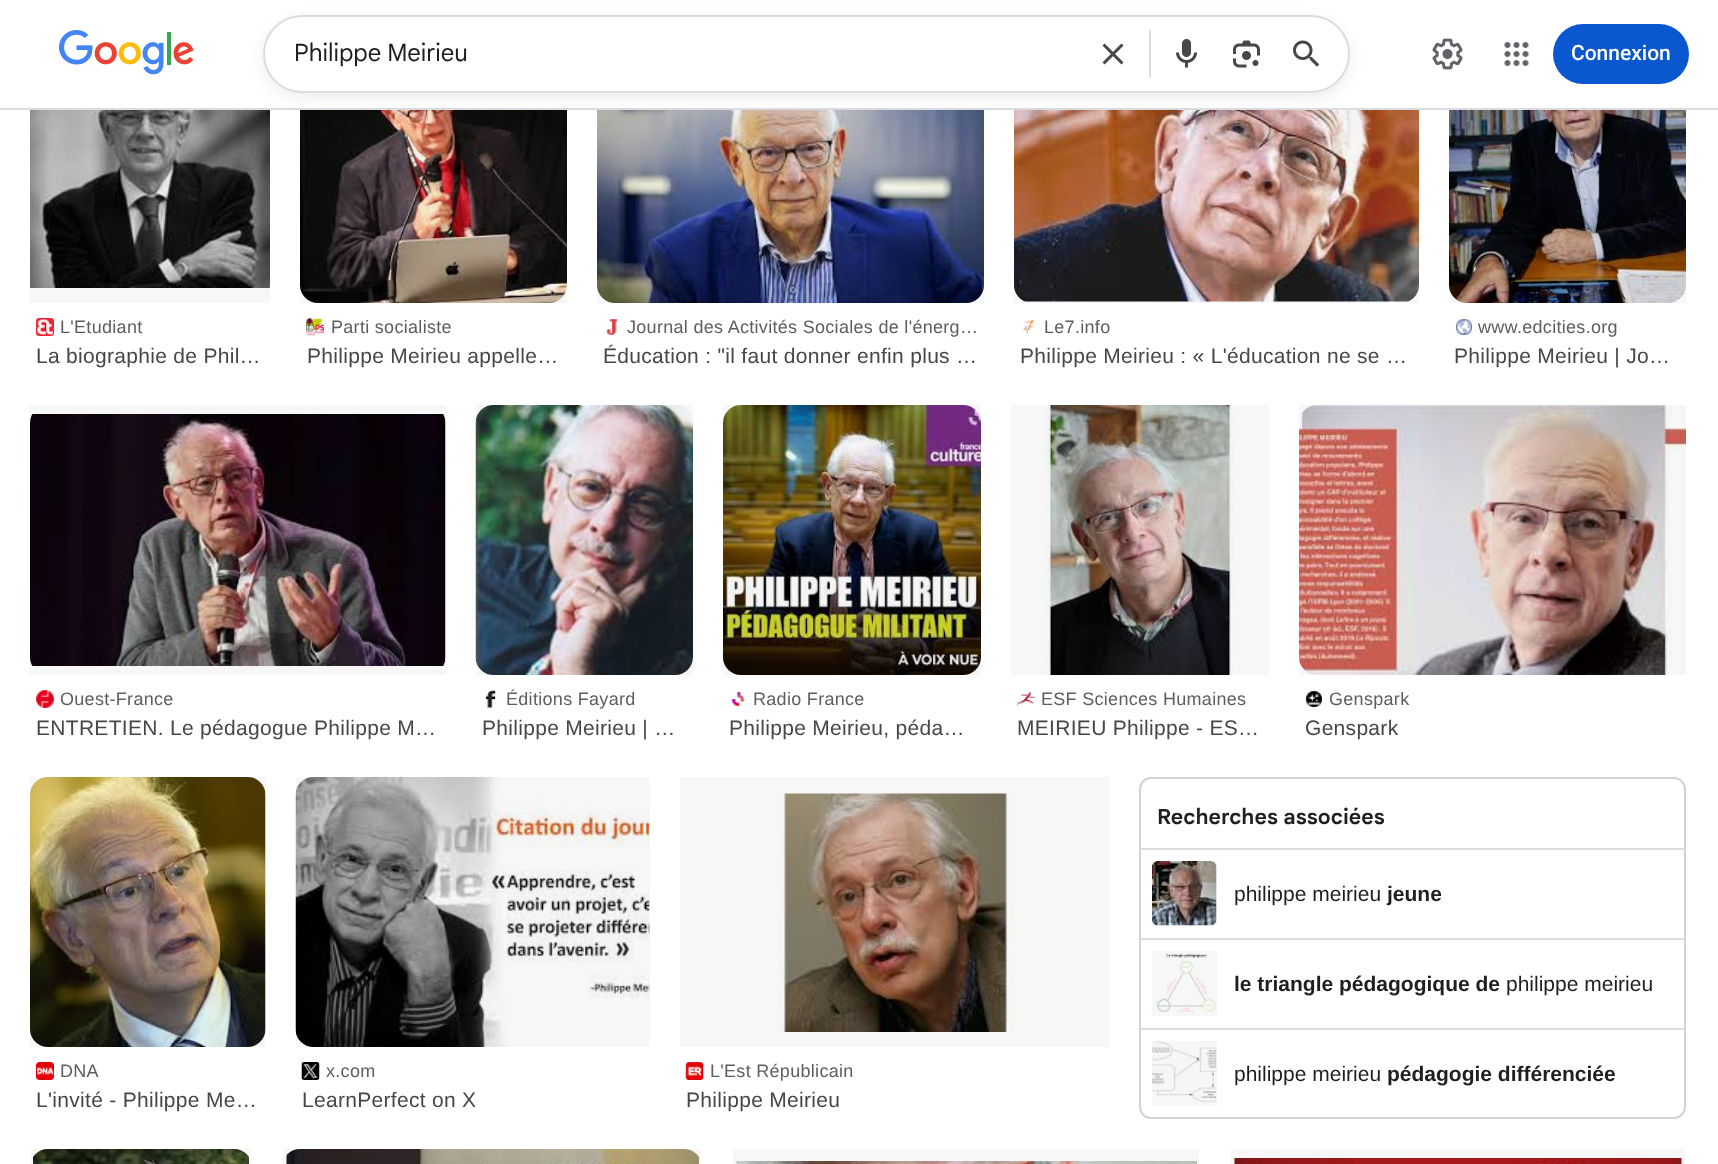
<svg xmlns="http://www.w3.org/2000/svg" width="1718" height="1164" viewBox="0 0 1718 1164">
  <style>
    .t1 { font: 24px Google Sans; fill: #1f1f1f; }
    .t2 { font: 500 21px Roboto; fill: #fff; }
    .t3 { font: 18px Liberation Sans; letter-spacing: 0.3px; fill: #5e5e5e; }
    .t4 { font: 21px Liberation Sans; letter-spacing: 0.3px; fill: #474747; }
    .t5 { font: bold 21px Google Sans; fill: #1f1f1f; }
    .t6 { font: 21px Liberation Sans; fill: #1f1f1f; }
    .t7 { font: bold 21px Liberation Sans; fill: #1f1f1f; }
  </style>
  <rect width="100%" height="100%" fill="#fff"/>
  <rect x="0" y="108" width="1718" height="2" fill="#dadce0"/>
  <image x="59" y="30" width="135" height="45" href="images/1.png"/>
  <image x="30" y="110" width="240" height="178" href="images/8.png"/>
  <rect x="30" y="110" width="240" height="193" fill="#00000008"/>
  <image x="300" y="110" width="267" height="193" href="images/10.png"/>
  <rect x="300" y="110" width="267" height="193" fill="#00000008"/>
  <image x="597" y="110" width="387" height="193" href="images/12.png"/>
  <rect x="597" y="110" width="387" height="193" fill="#00000008"/>
  <image x="1014" y="110" width="405" height="192" href="images/14.png"/>
  <rect x="1014" y="110" width="405" height="193" fill="#00000008"/>
  <rect x="263" y="20" width="1087" height="78" rx="39" fill="#1f1f1f14" filter="blur(7.5px)"/>
  <rect x="264" y="16" width="1085" height="76" rx="38" fill="#fff" stroke="#dadce0" stroke-width="2"/>
  <text x="294" y="61" class="t1">Philippe Meirieu</text>
  <image x="1102" y="43" width="22" height="22" href="images/2.png"/>
  <rect x="1149" y="30" width="2" height="48" fill="#dadce0"/>
  <image x="1176" y="39" width="21" height="29" href="images/3.png"/>
  <image x="1233" y="40" width="27" height="28" href="images/4.png"/>
  <image x="1293" y="40" width="27" height="27" href="images/5.png"/>
  <image x="1432" y="38" width="31" height="32" href="images/6.png"/>
  <image x="1504" y="42" width="25" height="24" href="images/7.png"/>
  <rect x="1553" y="24" width="136" height="60" rx="30" fill="#0b57d0"/>
  <text x="1571" y="60" class="t2">Connexion</text>
  <image x="36" y="318" width="18" height="18" href="images/9.png"/>
  <text x="60" y="333" class="t3">L'Etudiant</text>
  <text x="36" y="363" class="t4">La biographie de Phil…</text>
  <image x="306" y="318" width="18" height="18" href="images/11.png"/>
  <text x="331" y="333" class="t3">Parti socialiste</text>
  <text x="307" y="363" class="t4">Philippe Meirieu appelle…</text>
  <image x="606" y="319" width="12" height="16" href="images/13.png"/>
  <text x="627" y="333" class="t3">Journal des Activités Sociales de l'énerg…</text>
  <text x="603" y="363" class="t4">Éducation : "il faut donner enfin plus …</text>
  <image x="1022" y="320" width="13" height="14" href="images/15.png"/>
  <text x="1044" y="333" class="t3">Le7.info</text>
  <text x="1020" y="363" class="t4">Philippe Meirieu : « L'éducation ne se …</text>
  <image x="1449" y="110" width="237" height="193" href="images/16.png"/>
  <rect x="1449" y="110" width="237" height="193" fill="#00000008"/>
  <image x="1456" y="319" width="16" height="16" href="images/17.png"/>
  <text x="1478" y="333" class="t3">www.edcities.org</text>
  <text x="1454" y="363" class="t4">Philippe Meirieu | Jo…</text>
  <image x="30" y="414" width="416" height="252" href="images/18.png"/>
  <rect x="30" y="405" width="416" height="270" fill="#00000008"/>
  <image x="36" y="690" width="18" height="18" href="images/19.png"/>
  <text x="60" y="705" class="t3">Ouest-France</text>
  <text x="36" y="735" class="t4">ENTRETIEN. Le pédagogue Philippe M…</text>
  <image x="475" y="405" width="218" height="270" href="images/20.png"/>
  <rect x="476" y="405" width="217" height="270" fill="#00000008"/>
  <image x="485" y="690" width="12" height="18" href="images/21.png"/>
  <text x="506" y="705" class="t3">Éditions Fayard</text>
  <text x="482" y="735" class="t4">Philippe Meirieu | …</text>
  <image x="723" y="405" width="258" height="270" href="images/22.png"/>
  <rect x="723" y="405" width="258" height="270" fill="#00000008"/>
  <image x="731" y="692" width="14" height="14" href="images/23.png"/>
  <text x="753" y="705" class="t3">Radio France</text>
  <text x="729" y="735" class="t4">Philippe Meirieu, péda…</text>
  <image x="1043" y="405" width="192" height="270" href="images/24.png"/>
  <rect x="1011" y="405" width="258" height="270" fill="#00000008"/>
  <image x="1017" y="692" width="18" height="14" href="images/25.png"/>
  <text x="1041" y="705" class="t3">ESF Sciences Humaines</text>
  <text x="1017" y="735" class="t4">MEIRIEU Philippe - ES…</text>
  <image x="1299" y="405" width="387" height="270" href="images/26.png"/>
  <rect x="1299" y="405" width="387" height="270" fill="#00000008"/>
  <image x="1305" y="690" width="18" height="18" href="images/27.png"/>
  <text x="1329" y="705" class="t3">Genspark</text>
  <text x="1305" y="735" class="t4">Genspark</text>
  <image x="30" y="777" width="236" height="270" href="images/28.png"/>
  <rect x="30" y="777" width="236" height="270" fill="#00000008"/>
  <image x="36" y="1062" width="18" height="18" href="images/29.png"/>
  <text x="60" y="1077" class="t3">DNA</text>
  <text x="36" y="1107" class="t4">L'invité - Philippe Me…</text>
  <image x="295" y="777" width="355" height="270" href="images/30.png"/>
  <rect x="296" y="777" width="354" height="270" fill="#00000008"/>
  <image x="301" y="1062" width="19" height="18" href="images/31.png"/>
  <text x="326" y="1077" class="t3">x.com</text>
  <text x="302" y="1107" class="t4">LearnPerfect on X</text>
  <image x="778" y="793" width="237" height="239" href="images/32.png"/>
  <rect x="680" y="777" width="429" height="270" fill="#00000008"/>
  <image x="685" y="1062" width="19" height="18" href="images/33.png"/>
  <text x="710" y="1077" class="t3">L'Est Républicain</text>
  <text x="686" y="1107" class="t4">Philippe Meirieu</text>
  <rect x="1140" y="778" width="545" height="340" rx="11" fill="none" stroke="#d2d2d2" stroke-width="2"/>
  <text x="1157" y="824" class="t5">Recherches associées</text>
  <rect x="1140" y="848" width="545" height="2" fill="#dadce0"/>
  <image x="1152" y="861" width="65" height="65" href="images/34.png"/>
  <rect x="1152" y="861" width="65" height="65" fill="#00000008"/>
  <text x="1234" y="901" class="t6">philippe meirieu</text>
  <text x="1387" y="901" class="t7">jeune</text>
  <rect x="1140" y="938" width="545" height="2" fill="#dadce0"/>
  <image x="1157" y="953" width="59" height="59" href="images/35.png"/>
  <rect x="1152" y="951" width="65" height="65" fill="#00000008"/>
  <text x="1234" y="991" class="t7">le triangle pédagogique de</text>
  <text x="1506" y="991" class="t6">philippe meirieu</text>
  <rect x="1140" y="1028" width="545" height="2" fill="#dadce0"/>
  <image x="1152" y="1041" width="65" height="62" href="images/36.png"/>
  <rect x="1152" y="1041" width="65" height="65" fill="#00000008"/>
  <text x="1234" y="1081" class="t6">philippe meirieu</text>
  <text x="1387" y="1081" class="t7">pédagogie différenciée</text>
  <image x="33" y="1149" width="216" height="15" href="images/37.png"/>
  <rect x="31" y="1149" width="220" height="15" fill="#00000008"/>
  <image x="286" y="1149" width="413" height="15" href="images/38.png"/>
  <rect x="283" y="1149" width="418" height="15" fill="#00000008"/>
  <image x="736" y="1161" width="461" height="3" href="images/39.png"/>
  <rect x="733" y="1149" width="466" height="15" fill="#00000008"/>
  <image x="1234" y="1158" width="448" height="6" href="images/40.png"/>
  <rect x="1231" y="1149" width="454" height="15" fill="#00000008"/>
</svg>
